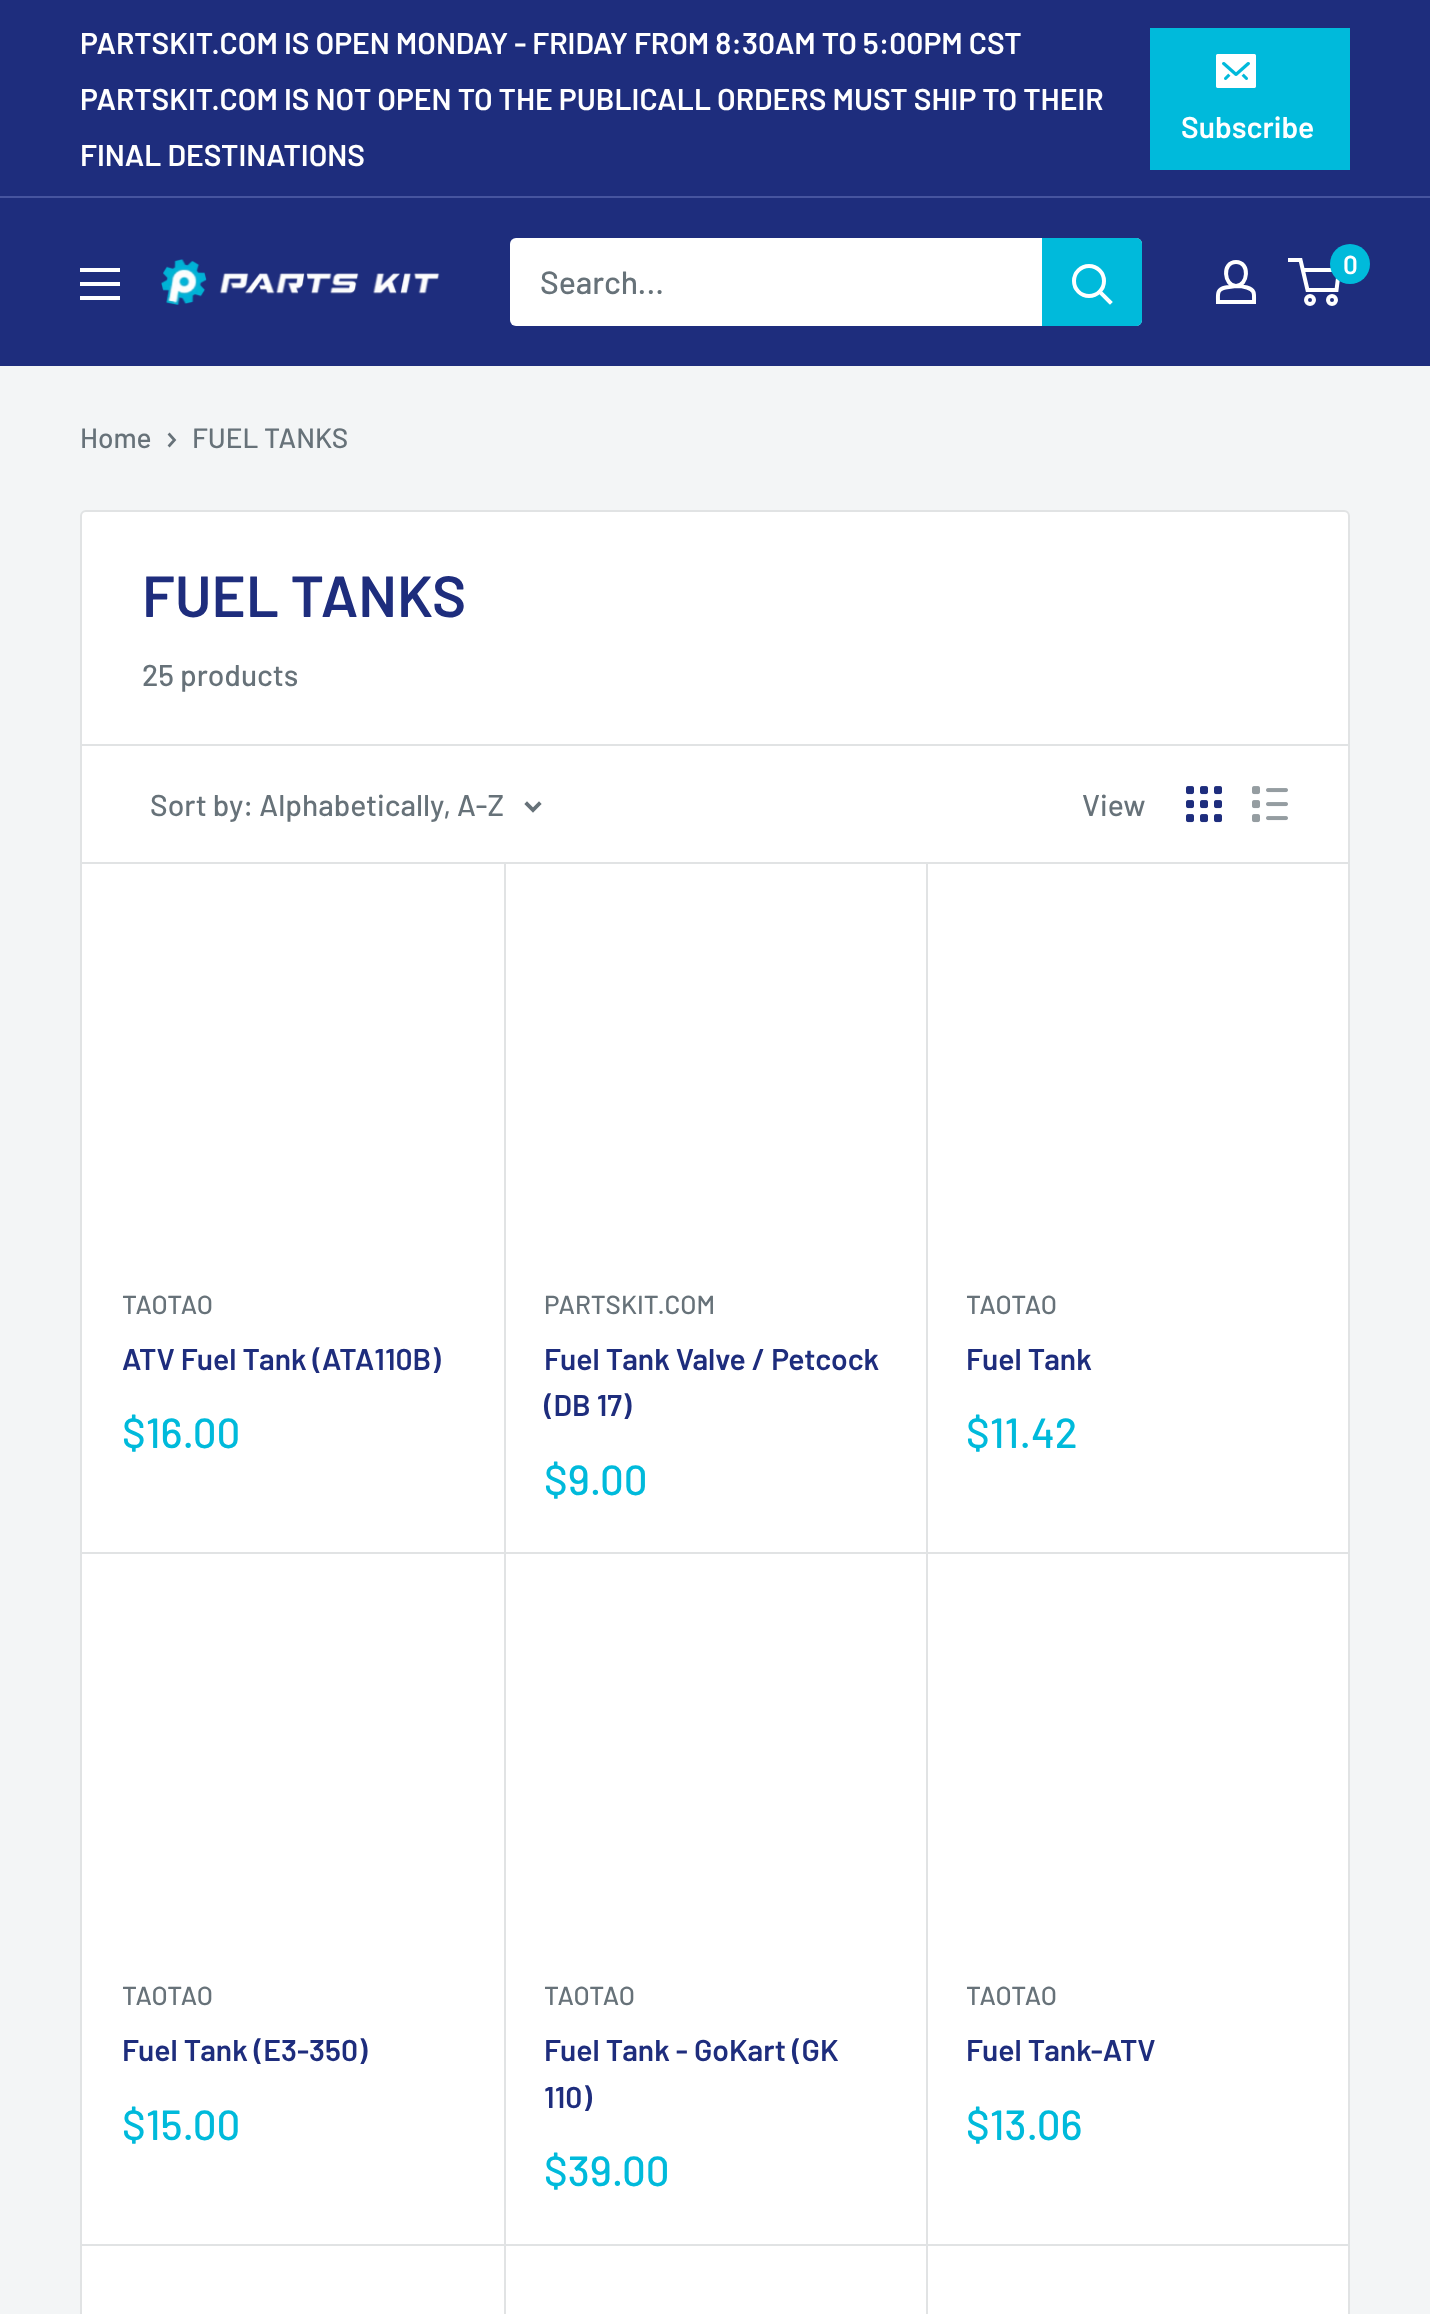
<svg xmlns="http://www.w3.org/2000/svg" width="1430" height="2314" viewBox="0 0 1430 2314">
  <style>
    .t1 { font: 600 30px Barlow; fill: #fff; }
    .t2 { font: 500 32px Barlow; fill: #677279; }
    .t3 { font: 600 26px Barlow; fill: #fff; }
    .t4 { font: 500 28px Barlow; fill: #677279; }
    .t5 { font: 600 58px Barlow; fill: #1e2d7d; }
    .t6 { font: 500 30px Barlow; fill: #677279; }
    .t7 { font: 500 26px Barlow; fill: #677279; }
    .t8 { font: 600 30px Barlow; fill: #1e2d7d; }
    .t9 { font: 500 42px Barlow; fill: #00badb; }
  </style>
  <rect width="100%" height="100%" fill="#f3f5f6"/>
  <rect x="0" y="0" width="1430" height="196" fill="#1e2d7d"/>
  <rect x="0" y="196" width="1430" height="2" fill="#46549f"/>
  <text x="80" y="54" class="t1">PARTSKIT.COM IS OPEN MONDAY - FRIDAY FROM 8:30AM TO 5:00PM CST</text>
  <text x="80" y="110" class="t1">PARTSKIT.COM IS NOT OPEN TO THE PUBLICALL ORDERS MUST SHIP TO THEIR</text>
  <text x="80" y="166" class="t1">FINAL DESTINATIONS</text>
  <rect x="1150" y="28" width="200" height="142" fill="#00badb"/>
  <image x="1216" y="54" width="40" height="34" href="images/1.png"/>
  <text x="1181" y="138" class="t1">Subscribe</text>
  <rect x="0" y="198" width="1430" height="168" fill="#1e2d7d"/>
  <path d="M80 296H120V300H80ZM80 268H120V272H80ZM80 282H120V286H80Z" fill="#fff" fill-rule="evenodd"/>
  <image x="161" y="259" width="279" height="46" href="images/2.png"/>
  <rect x="510" y="238" width="632" height="88" rx="6" fill="#fff"/>
  <text x="540" y="294" class="t2">Search...</text>
  <path d="M1042 238H1136C1139.5 238 1142 240.5 1142 244V320C1142 323.5 1139.5 326 1136 326H1042Z" fill="#00badb"/>
  <path d="M1110 302L1100 292" fill="none" stroke="#fff" stroke-width="4" stroke-linecap="square"/>
  <circle cx="1089" cy="281" r="15" fill="none" stroke="#fff" stroke-width="4"/>
  <path d="M1236 286C1240 286 1243.5 286.5 1247 287.5C1255.5 290 1254 294.5 1254 302H1218C1218 294 1216.5 289.5 1225.5 287.5ZM1236 286C1224 286 1221.5 262 1236 262C1250.5 262 1248 286 1236 286Z" fill="none" stroke="#fff" stroke-width="4"/>
  <circle cx="1310" cy="300" r="4" fill="none" stroke="#fff" stroke-width="4"/>
  <circle cx="1332" cy="300" r="4" fill="none" stroke="#fff" stroke-width="4"/>
  <path d="M1302.5 270H1339L1336.5 290H1307.5L1300.5 260H1288" fill="none" stroke="#fff" stroke-width="4"/>
  <circle cx="1350" cy="264" r="20" fill="#00badb"/>
  <text x="1343" y="274" class="t3">0</text>
  <text x="80" y="448" class="t4">Home</text>
  <path d="M169.5 434.5L174.5 440L169.5 445.5" fill="none" stroke="#677279" stroke-width="2.7" stroke-linecap="square"/>
  <text x="192" y="448" class="t4">FUEL TANKS</text>
  <rect x="81" y="511" width="1268" height="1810" rx="5" fill="#fff" stroke="#e1e3e4" stroke-width="2"/>
  <text x="142" y="617" class="t5">FUEL TANKS</text>
  <text x="142" y="686" class="t6">25 products</text>
  <rect x="82" y="744" width="1266" height="2" fill="#e1e3e4"/>
  <rect x="82" y="1552" width="1266" height="2" fill="#e1e3e4"/>
  <rect x="504" y="862" width="2" height="1382" fill="#e1e3e4"/>
  <rect x="926" y="862" width="2" height="1382" fill="#e1e3e4"/>
  <rect x="82" y="862" width="1266" height="2" fill="#e1e3e4"/>
  <text x="150" y="816" class="t6">Sort by: Alphabetically, A-Z</text>
  <path d="M539 804L533 810L527 804" fill="none" stroke="#677279" stroke-width="3.8" stroke-linecap="square"/>
  <text x="1082" y="816" class="t6">View</text>
  <image x="1186" y="786" width="36" height="37" href="images/3.png"/>
  <image x="1252" y="786" width="36" height="37" href="images/4.png"/>
  <text x="122" y="1314" class="t7">TAOTAO</text>
  <text x="122" y="1370" class="t8">ATV Fuel Tank (ATA110B)</text>
  <text x="122" y="1448" class="t9">$16.00</text>
  <text x="544" y="1314" class="t7">PARTSKIT.COM</text>
  <text x="544" y="1370" class="t8">Fuel Tank Valve / Petcock</text>
  <text x="544" y="1416" class="t8">(DB 17)</text>
  <text x="544" y="1495" class="t9">$9.00</text>
  <text x="966" y="1314" class="t7">TAOTAO</text>
  <text x="966" y="1370" class="t8">Fuel Tank</text>
  <text x="966" y="1448" class="t9">$11.42</text>
  <text x="122" y="2005" class="t7">TAOTAO</text>
  <text x="122" y="2061" class="t8">Fuel Tank (E3-350)</text>
  <text x="122" y="2140" class="t9">$15.00</text>
  <rect x="82" y="2244" width="1266" height="2" fill="#e1e3e4"/>
  <text x="544" y="2005" class="t7">TAOTAO</text>
  <text x="544" y="2061" class="t8">Fuel Tank - GoKart (GK</text>
  <text x="544" y="2108" class="t8">110)</text>
  <text x="544" y="2186" class="t9">$39.00</text>
  <text x="966" y="2005" class="t7">TAOTAO</text>
  <text x="966" y="2061" class="t8">Fuel Tank-ATV</text>
  <text x="966" y="2140" class="t9">$13.06</text>
  <rect x="504" y="2244" width="2" height="70" fill="#e1e3e4"/>
  <rect x="926" y="2244" width="2" height="70" fill="#e1e3e4"/>
</svg>
